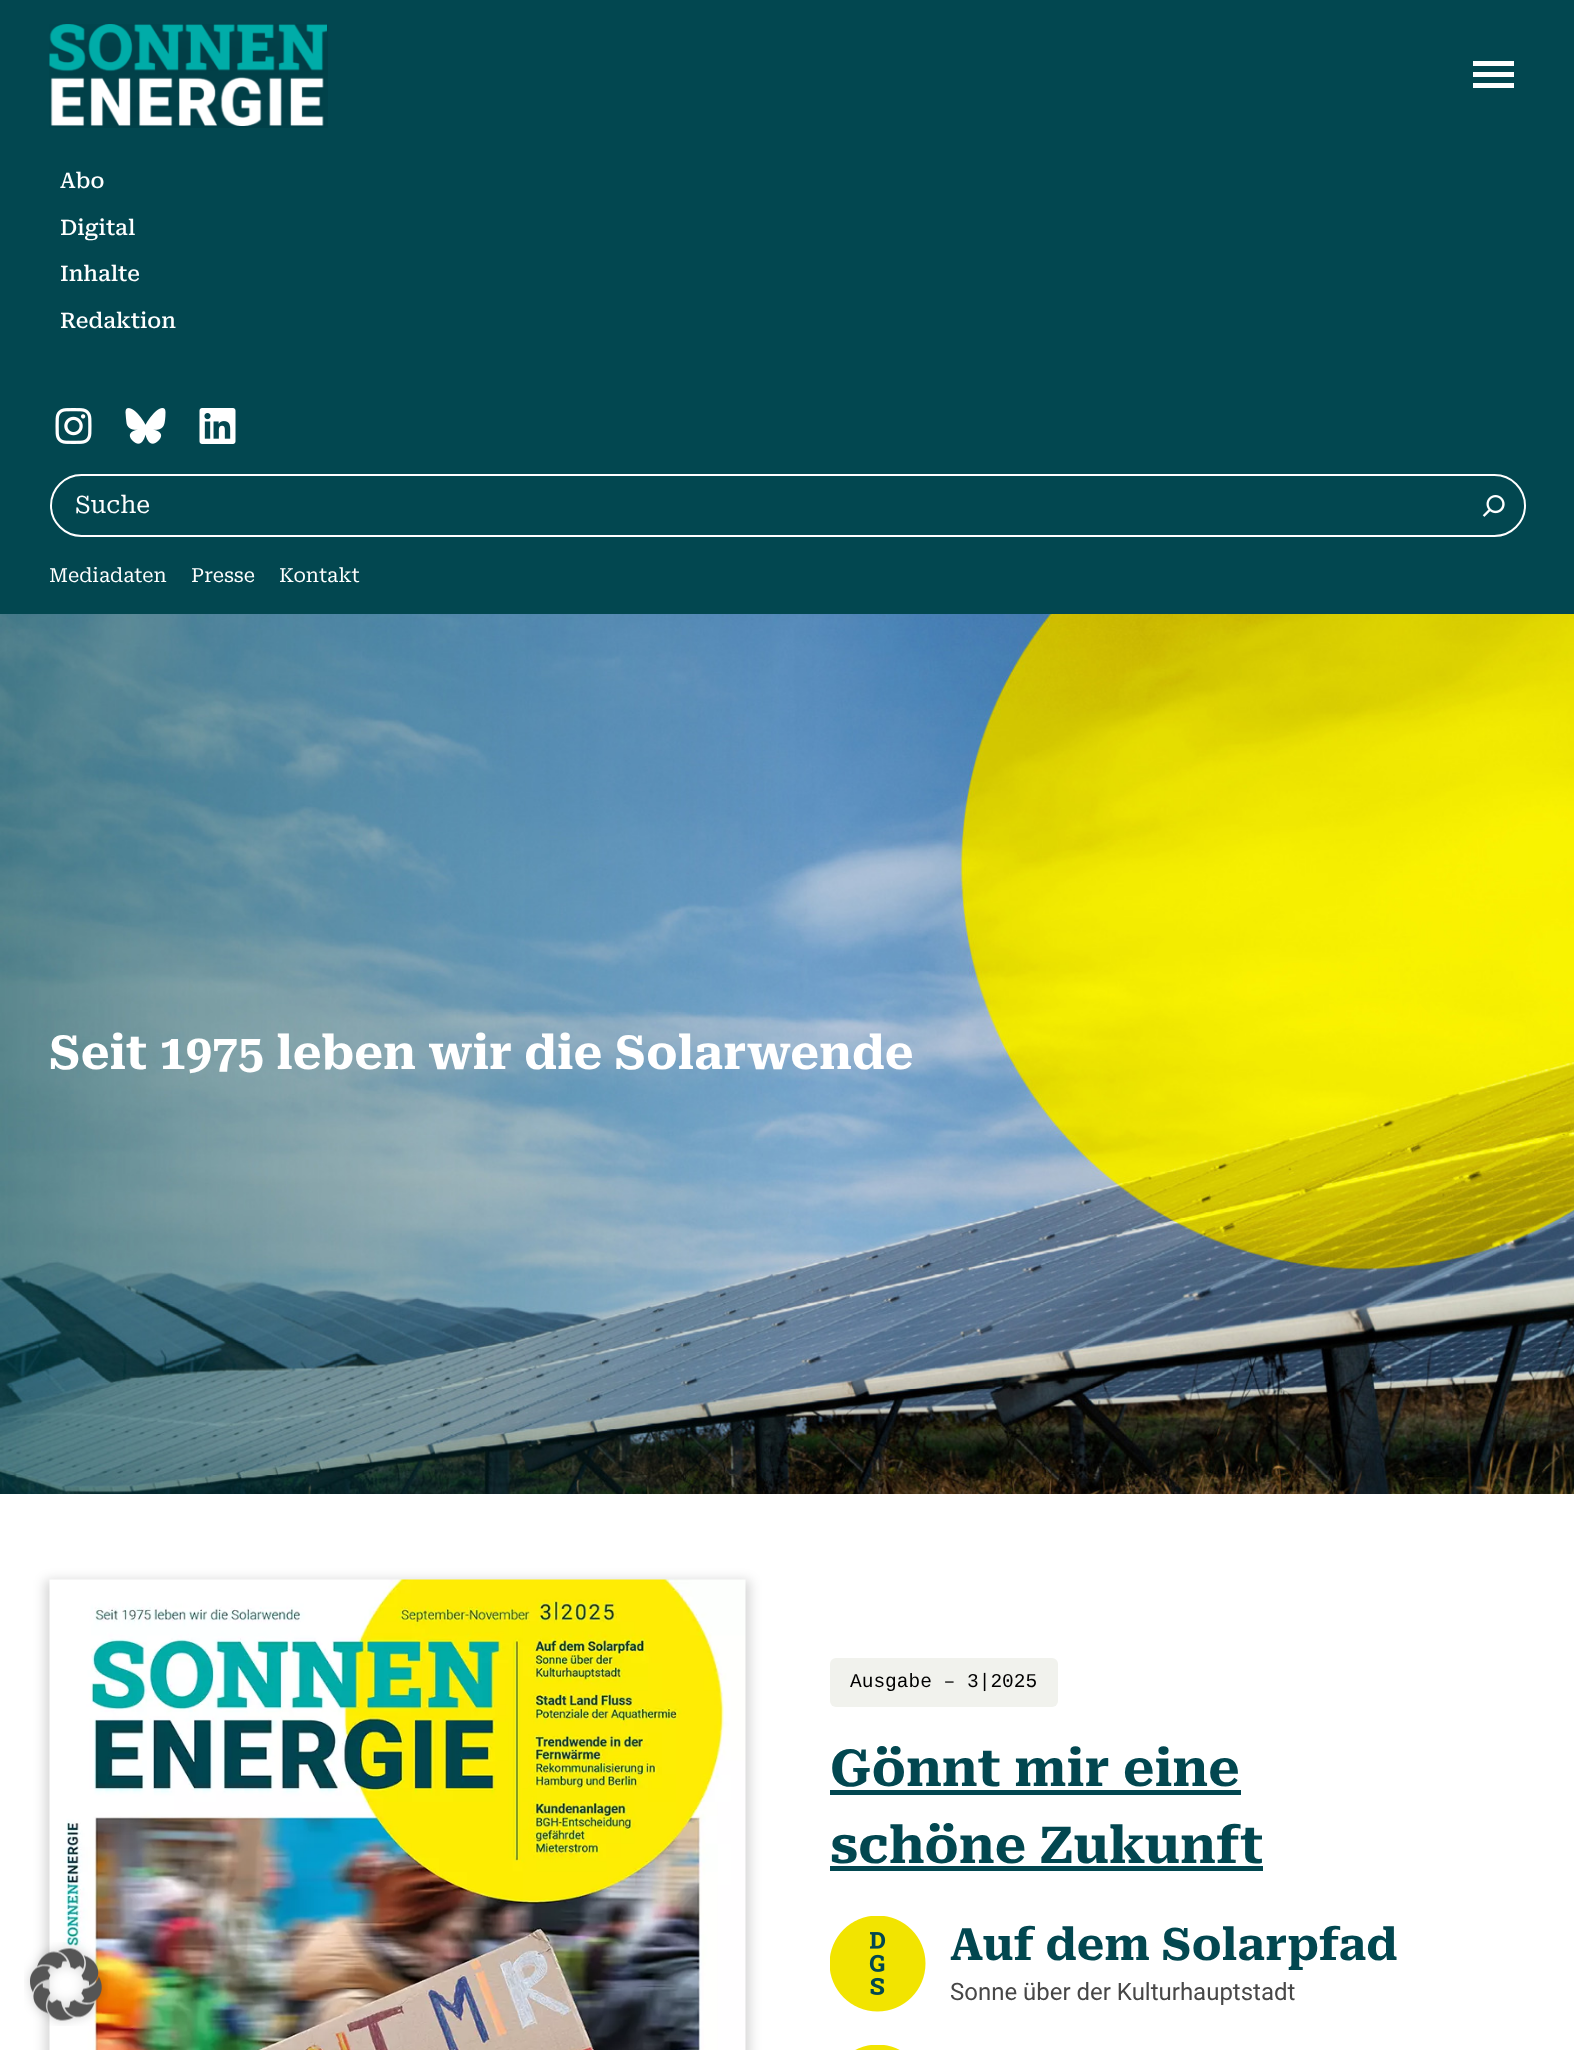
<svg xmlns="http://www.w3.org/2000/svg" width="1574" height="2050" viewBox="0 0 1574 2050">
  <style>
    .t1 { font: 500 21.5px Roboto Serif; fill: #fff; }
    .t2 { font: 24px Roboto Serif; fill: #fff; }
    .t3 { font: 19.5px Roboto Serif; fill: #fff; }
    .t4 { font: bold 46.75px Roboto Serif; fill: #fff; }
    .t5 { font: 19.5px Liberation Mono; fill: #000; }
    .t6 { font: bold 51px Roboto Serif; fill: #024750; }
    .t7 { font: bold 44.6px Roboto Serif; fill: #024750; }
    .t8 { font: 24px Roboto; fill: #474747; }
  </style>
  <rect width="100%" height="100%" fill="#fff"/>
  <rect x="0" y="0" width="1574" height="614" fill="#024750"/>
  <image x="49" y="24" width="279" height="104" href="images/1.png"/>
  <path d="M1473 88V83H1514V88ZM1473 77V72H1514V77ZM1473 66V61H1514V66Z" fill="#fff"/>
  <text x="60" y="188" class="t1">Abo</text>
  <text x="60" y="235" class="t1">Digital</text>
  <text x="60" y="281" class="t1">Inhalte</text>
  <text x="60" y="328" class="t1">Redaktion</text>
  <image x="55" y="408" width="37" height="36" href="images/2.png"/>
  <image x="125" y="408" width="41" height="36" href="images/3.png"/>
  <image x="199" y="408" width="37" height="36" href="images/4.png"/>
  <rect x="51" y="475" width="1474" height="61" rx="30.5" fill="none" stroke="#fff" stroke-width="2"/>
  <text x="75" y="513" class="t2">Suche</text>
  <image x="1482" y="495" width="23" height="22" href="images/5.png"/>
  <text x="49" y="582" class="t3">Mediadaten</text>
  <text x="191" y="582" class="t3">Presse</text>
  <text x="279" y="582" class="t3">Kontakt</text>
  <image x="0" y="614" width="1574" height="880" href="images/6.png"/>
  <text x="49" y="1069" class="t4">Seit 1975 leben wir die Solarwende</text>
  <rect x="45" y="1580" width="705" height="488" fill="#00000029" filter="blur(6px)"/>
  <image x="49" y="1579" width="697" height="471" href="images/7.png"/>
  <rect x="830" y="1658" width="228" height="49" rx="6" fill="#f1f2ed"/>
  <text x="850" y="1687" class="t5">Ausgabe – 3|2025</text>
  <text x="830" y="1786" class="t6">Gönnt mir eine</text>
  <rect x="830" y="1790" width="411" height="5" fill="#024750"/>
  <text x="830" y="1863" class="t6">schöne Zukunft</text>
  <rect x="830" y="1866" width="433" height="5" fill="#024750"/>
  <image x="830" y="1916" width="96" height="96" href="images/8.png"/>
  <text x="950" y="1960" class="t7">Auf dem Solarpfad</text>
  <text x="950" y="2000" class="t8">Sonne über der Kulturhauptstadt</text>
  <image x="855" y="2045" width="45" height="5" href="images/9.png"/>
  <image x="24" y="1942" width="84" height="84" href="images/10.png"/>
</svg>
